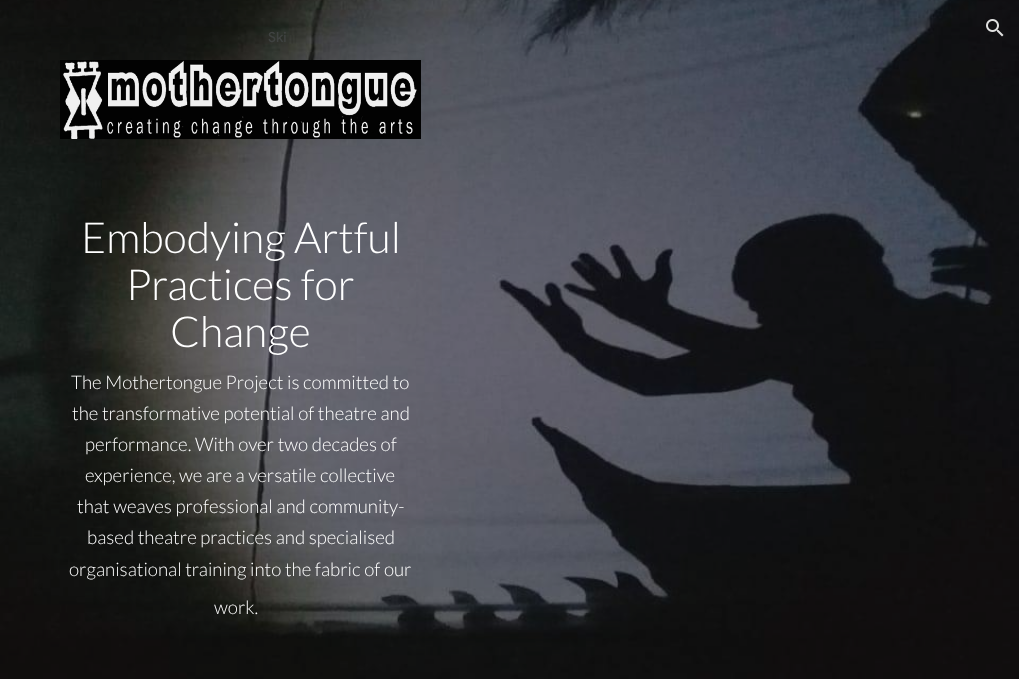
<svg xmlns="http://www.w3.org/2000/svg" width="1019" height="679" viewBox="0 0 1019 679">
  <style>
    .t1 { font: 500 14px Google Sans; fill: #3f4241; }
    .t2 { font: 300 42.75px Lato; fill: #fff; }
    .t3 { font: 300 18.7px Lato; fill: #fff; }
  </style>
  <rect width="100%" height="100%" fill="#fff"/>
  <image x="0" y="0" width="1019" height="679" href="images/2.png"/>
  <text x="268" y="42" class="t1">Ski</text>
  <image x="986" y="19" width="18" height="18" href="images/1.png"/>
  <image x="60" y="60" width="361" height="79" href="images/3.png"/>
  <text x="81" y="253" class="t2">Embodying Artful</text>
  <text x="126" y="300" class="t2">Practices for</text>
  <text x="170" y="347" class="t2">Change</text>
  <text x="71" y="389" class="t3">The Mothertongue Project is committed to</text>
  <text x="72" y="420" class="t3">the transformative potential of theatre and</text>
  <text x="85" y="451" class="t3">performance. With over two decades of</text>
  <text x="85" y="482" class="t3">experience, we are a versatile collective</text>
  <text x="77" y="513" class="t3">that weaves professional and community-</text>
  <text x="87" y="544" class="t3">based theatre practices and specialised</text>
  <text x="69" y="576" class="t3">organisational training into the fabric of our</text>
  <text x="214" y="614" class="t3">work.</text>
</svg>
